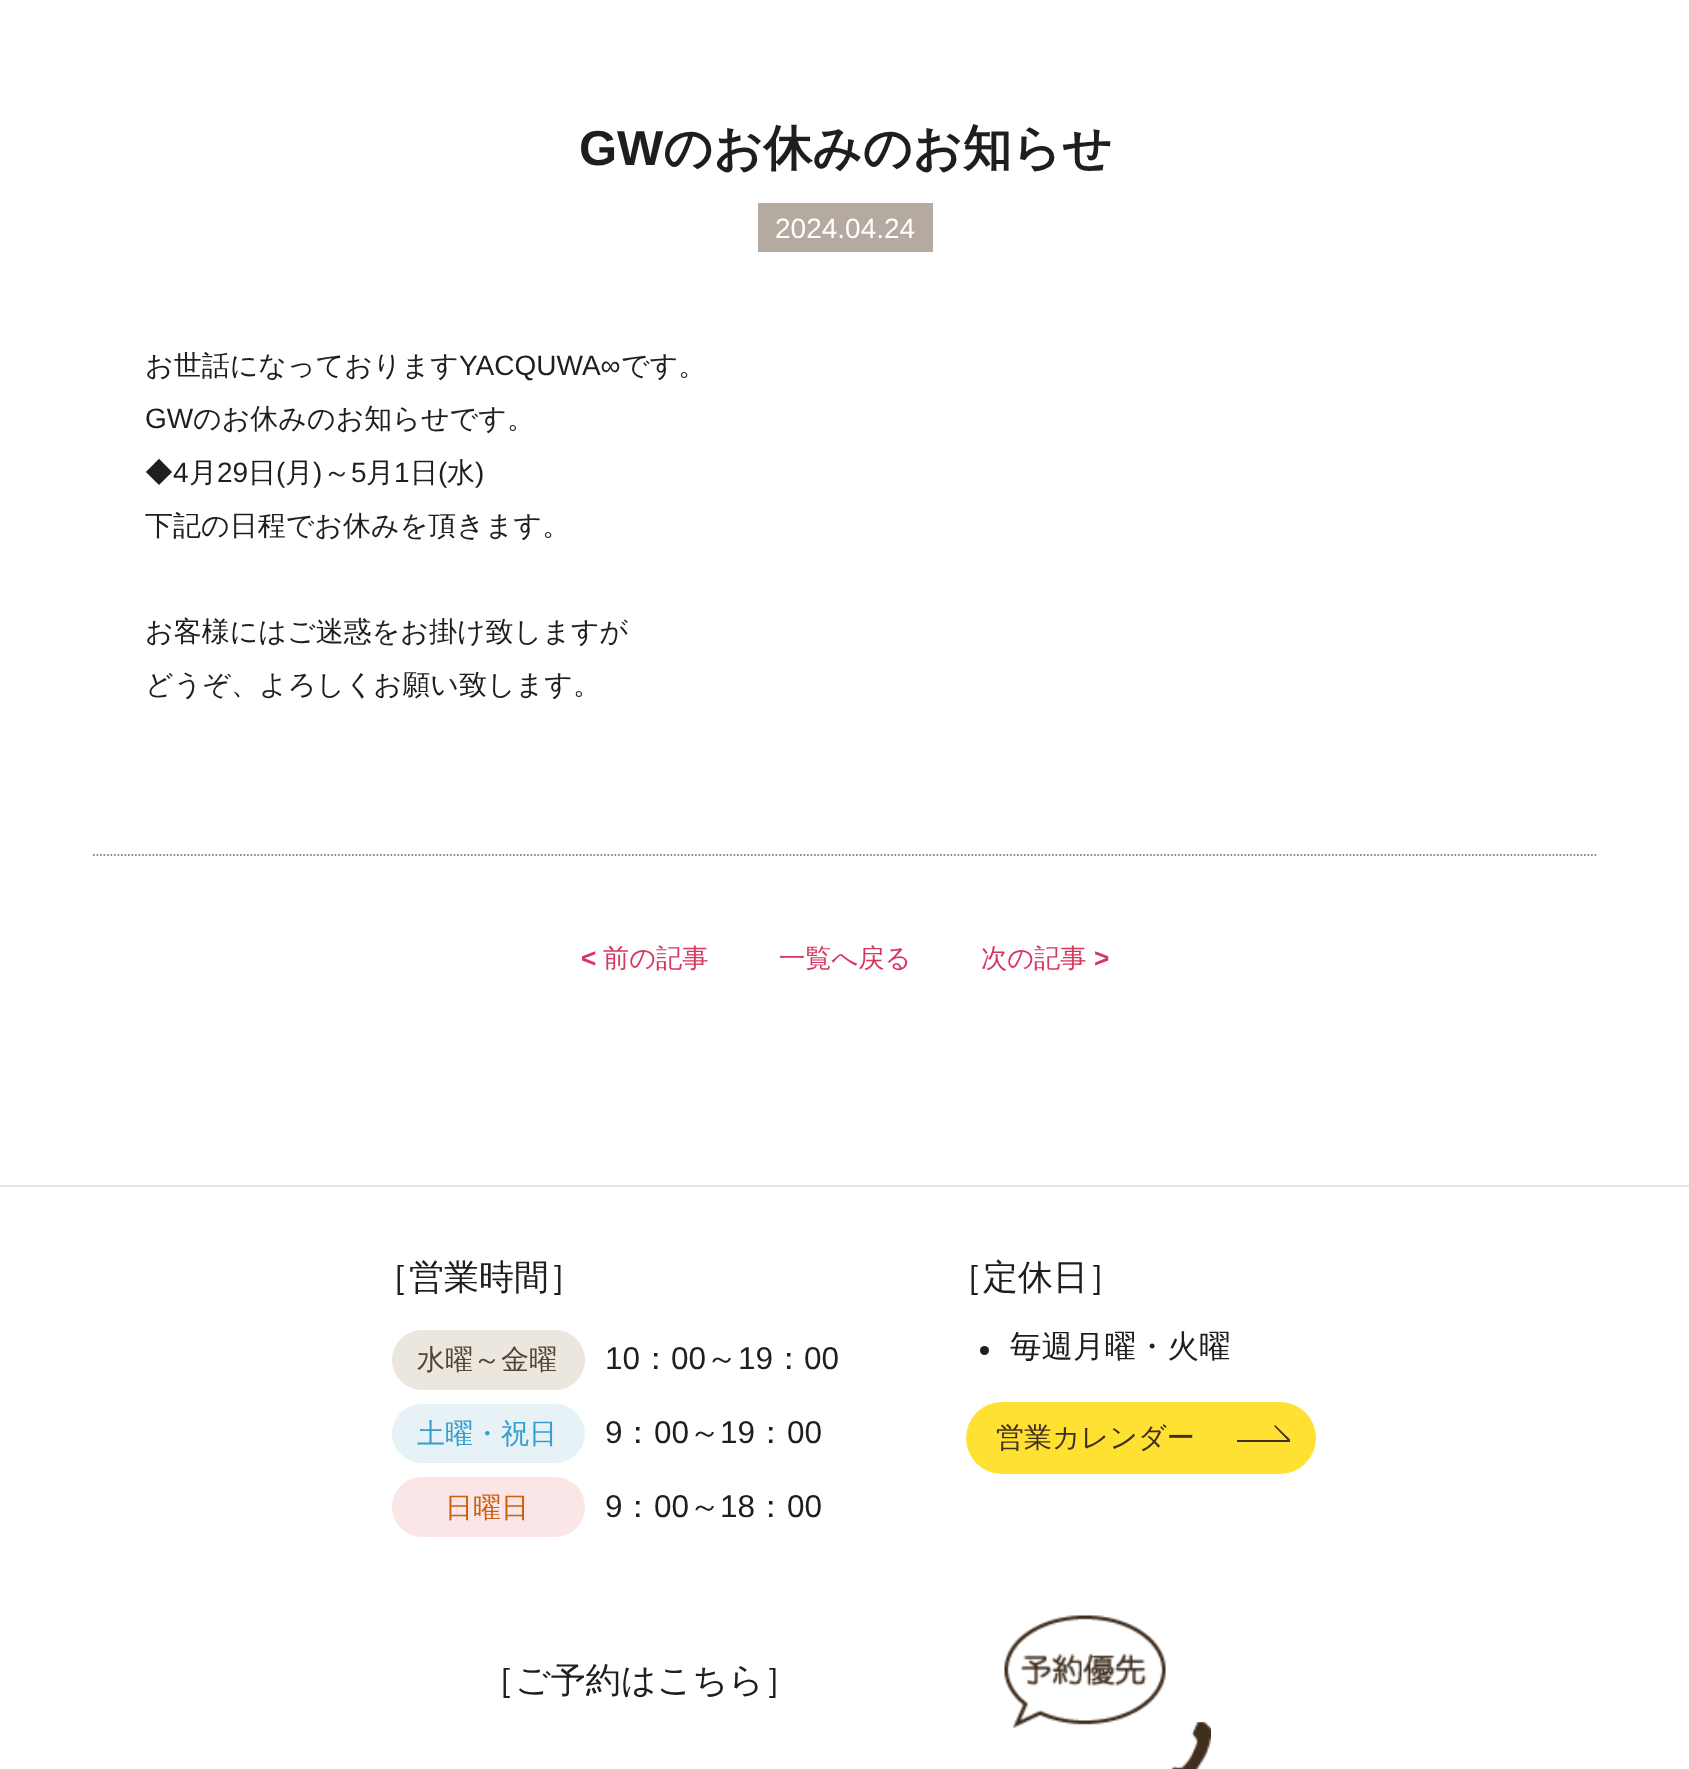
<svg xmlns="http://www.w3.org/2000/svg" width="1689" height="1769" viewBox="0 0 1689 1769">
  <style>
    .t1 { font: bold 49px Liberation Sans; fill: #1e1e1e; }
    .t2 { font: bold 49px WenQuanYi Zen Hei; fill: #1e1e1e; }
    .t3 { font: 28px Liberation Sans; fill: #fff; }
    .t4 { font: 500 28px WenQuanYi Zen Hei; fill: #1e1e1e; }
    .t5 { font: 28px Liberation Sans; fill: #1e1e1e; }
    .t6 { font: bold 26.25px Liberation Sans; fill: #d73660; }
    .t7 { font: 500 26.25px WenQuanYi Zen Hei; fill: #d73660; }
    .t8 { font: 500 35px WenQuanYi Zen Hei; fill: #1e1e1e; }
    .t9 { font: 500 28px WenQuanYi Zen Hei; fill: #544536; }
    .t10 { font: 31.5px Liberation Sans; fill: #1e1e1e; }
    .t11 { font: 500 31.5px WenQuanYi Zen Hei; fill: #1e1e1e; }
    .t12 { font: 500 28px WenQuanYi Zen Hei; fill: #369ed1; }
    .t13 { font: 500 28px WenQuanYi Zen Hei; fill: #cc6112; }
    .t14 { font: 500 28px WenQuanYi Zen Hei; fill: #402e1e; }
  </style>
  <rect width="100%" height="100%" fill="#fff"/>
  <text x="579" y="165" class="t1">GW</text>
  <text x="663" y="165" class="t2">のお休みのお知らせ</text>
  <rect x="758" y="203" width="175" height="49" fill="#b4aaa0"/>
  <text x="775" y="238" class="t3">2024.04.24</text>
  <path d="M93 855H1598" fill="none" stroke="#918f8d" stroke-width="1.8" stroke-dasharray="1.75 1.75"/>
  <text x="145" y="375" class="t4">お世話になっております</text>
  <text x="459" y="375" class="t5">YACQUWA∞</text>
  <text x="621" y="375" class="t4">です。</text>
  <text x="145" y="428" class="t5">GW</text>
  <text x="193" y="428" class="t4">のお休みのお知らせです。</text>
  <text x="145" y="482" class="t4">◆</text>
  <text x="173" y="482" class="t5">4</text>
  <text x="189" y="482" class="t4">月</text>
  <text x="217" y="482" class="t5">29</text>
  <text x="248" y="482" class="t4">日</text>
  <text x="276" y="482" class="t5">(</text>
  <text x="285" y="482" class="t4">月</text>
  <text x="313" y="482" class="t5">)</text>
  <text x="323" y="482" class="t4">～</text>
  <text x="351" y="482" class="t5">5</text>
  <text x="366" y="482" class="t4">月</text>
  <text x="394" y="482" class="t5">1</text>
  <text x="410" y="482" class="t4">日</text>
  <text x="438" y="482" class="t5">(</text>
  <text x="447" y="482" class="t4">水</text>
  <text x="475" y="482" class="t5">)</text>
  <text x="145" y="535" class="t4">下記の日程でお休みを頂きます。</text>
  <text x="145" y="641" class="t4">お客様にはご迷惑をお掛け致しますが</text>
  <text x="145" y="694" class="t4">どうぞ、よろしくお願い致します。</text>
  <text x="581" y="967" class="t6">&lt;</text>
  <text x="603" y="967" class="t7">前の記事</text>
  <text x="779" y="967" class="t7">一覧へ戻る</text>
  <text x="981" y="967" class="t7">次の記事</text>
  <text x="1094" y="967" class="t6">&gt;</text>
  <rect x="0" y="1185" width="1689" height="2" fill="#e6e6e6"/>
  <text x="374" y="1289" class="t8">［営業時間］</text>
  <rect x="392" y="1330" width="193" height="60" rx="30" fill="#ebe6de"/>
  <text x="417" y="1369" class="t9">水曜～金曜</text>
  <text x="605" y="1369" class="t10">10</text>
  <text x="640" y="1369" class="t11">：</text>
  <text x="671" y="1369" class="t10">00</text>
  <text x="706" y="1369" class="t11">～</text>
  <text x="738" y="1369" class="t10">19</text>
  <text x="773" y="1369" class="t11">：</text>
  <text x="804" y="1369" class="t10">00</text>
  <rect x="392" y="1404" width="193" height="59" rx="29.5" fill="#e6f2f5"/>
  <text x="417" y="1443" class="t12">土曜・祝日</text>
  <text x="605" y="1443" class="t10">9</text>
  <text x="622" y="1443" class="t11">：</text>
  <text x="654" y="1443" class="t10">00</text>
  <text x="689" y="1443" class="t11">～</text>
  <text x="720" y="1443" class="t10">19</text>
  <text x="755" y="1443" class="t11">：</text>
  <text x="787" y="1443" class="t10">00</text>
  <rect x="392" y="1477" width="193" height="60" rx="30" fill="#fae6e6"/>
  <text x="445" y="1517" class="t13">日曜日</text>
  <text x="605" y="1517" class="t10">9</text>
  <text x="622" y="1517" class="t11">：</text>
  <text x="654" y="1517" class="t10">00</text>
  <text x="689" y="1517" class="t11">～</text>
  <text x="720" y="1517" class="t10">18</text>
  <text x="755" y="1517" class="t11">：</text>
  <text x="787" y="1517" class="t10">00</text>
  <text x="948" y="1289" class="t8">［定休日］</text>
  <circle cx="984.5" cy="1350.5" r="4.5" fill="#1e1e1e"/>
  <text x="1010" y="1357" class="t11">毎週月曜・火曜</text>
  <rect x="966" y="1402" width="350" height="72" rx="36" fill="#ffe133"/>
  <text x="996" y="1447" class="t14">営業カレンダー</text>
  <rect x="1237" y="1440" width="53" height="2" fill="#402e1e"/>
  <path d="M1275 1425L1290 1439.5L1288.5 1441L1274 1426Z" fill="#402e1e"/>
  <text x="480" y="1692" class="t8">［ご予約はこちら］</text>
  <image x="1004" y="1615" width="162" height="113" href="images/1.png"/>
  <image x="1171" y="1722" width="40" height="47" href="images/2.png"/>
</svg>
